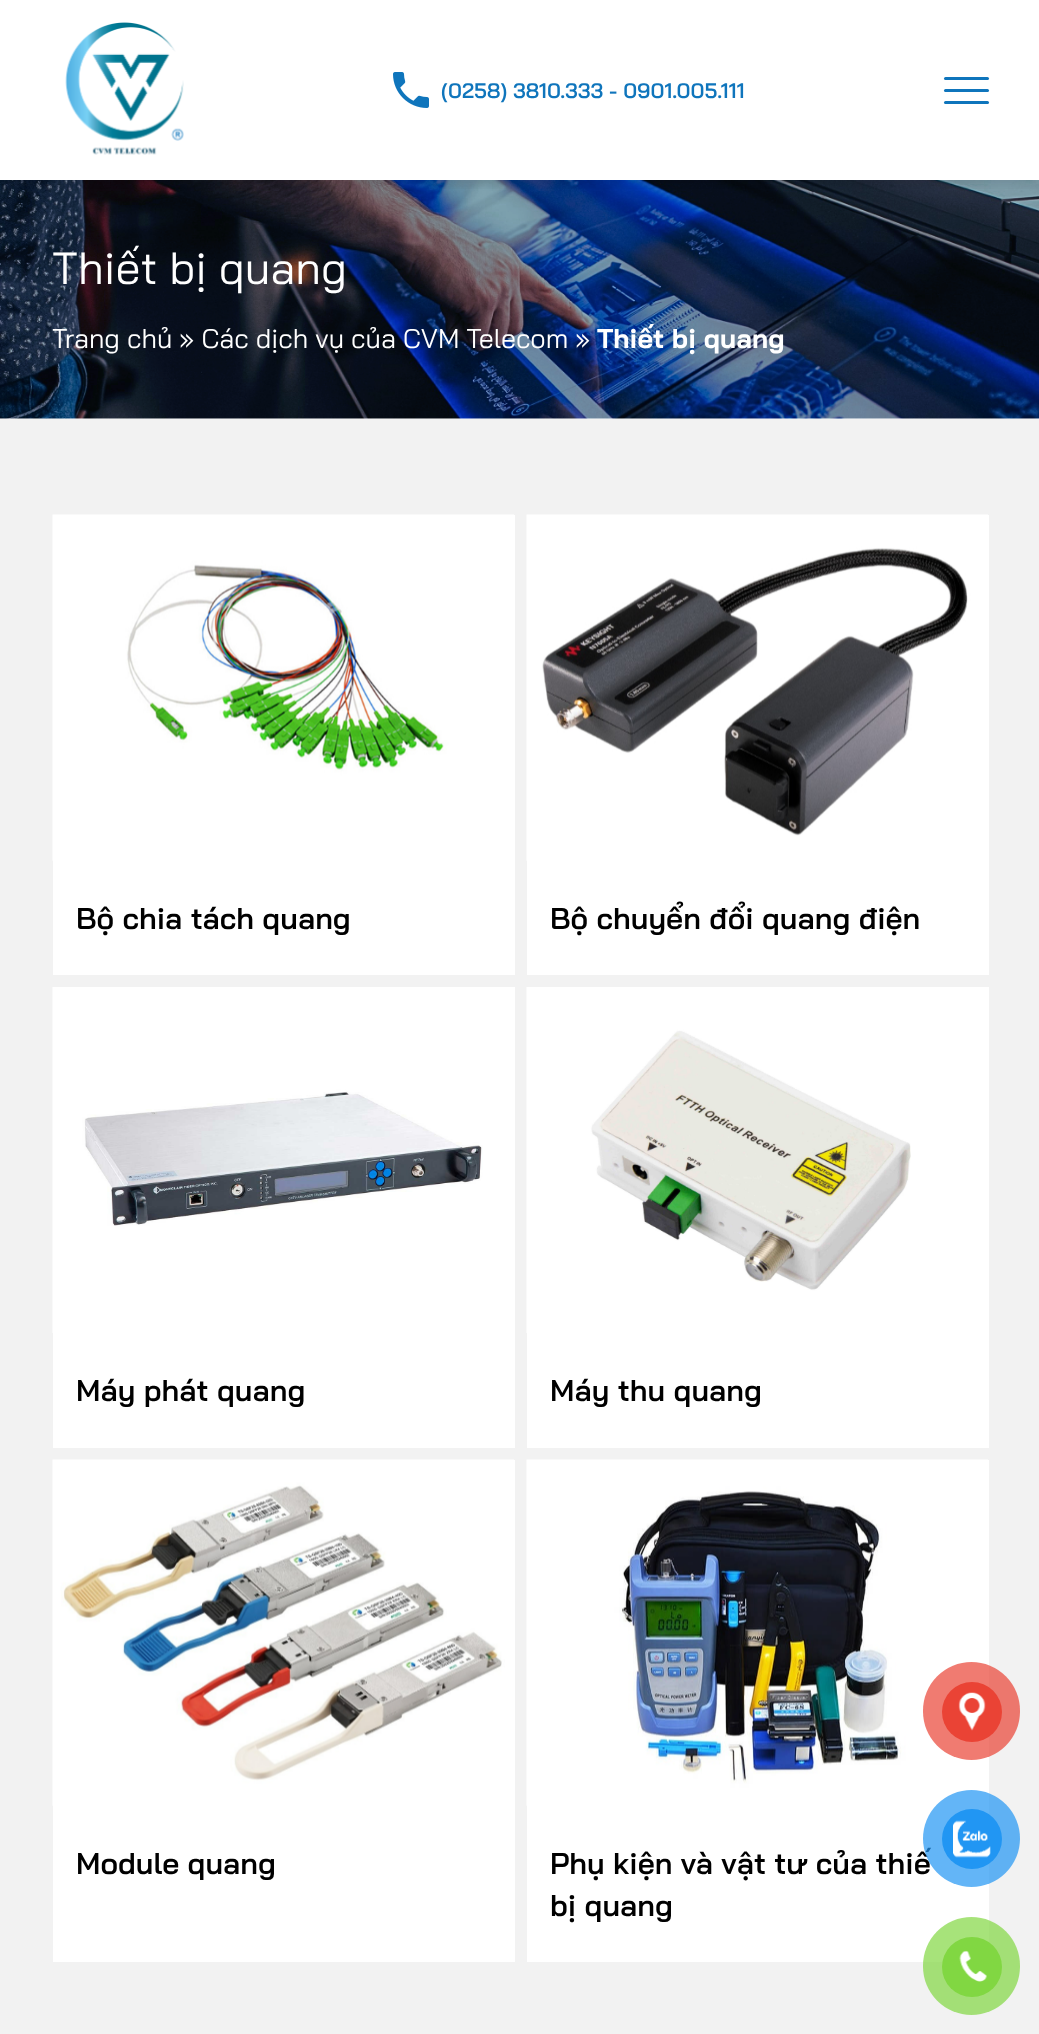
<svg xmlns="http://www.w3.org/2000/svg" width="1039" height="2034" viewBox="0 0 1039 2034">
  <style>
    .t1 { font: 600 21px Bai Jamjuree; fill: #0f75bc; }
    .t2 { font: 45px Bai Jamjuree; fill: #fff; }
    .t3 { font: 27px Bai Jamjuree; fill: #fff; }
    .t4 { font: bold 27px Bai Jamjuree; fill: #fff; }
    .t5 { font: 600 30px Bai Jamjuree; fill: #000; }
  </style>
  <defs>
    <clipPath id="clip1"><rect x="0" y="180" width="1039" height="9"/></clipPath>
  </defs>
  <rect width="100%" height="100%" fill="#fff"/>
  <image x="0" y="180" width="1039" height="239" href="images/3.png"/>
  <g clip-path="url(#clip1)">
    <rect x="2" y="8" width="1036" height="177" fill="#0000001a" filter="blur(4.5px)"/>
  </g>
  <image x="65" y="22" width="119" height="133" href="images/1.png"/>
  <image x="393" y="72" width="36" height="36" href="images/2.png"/>
  <text x="441" y="98" class="t1">(0258) 3810.333 - 0901.005.111</text>
  <rect x="944" y="77" width="45" height="3" rx="1.5" fill="#0f75bc"/>
  <rect x="944" y="89" width="45" height="3" rx="1.5" fill="#0f75bc"/>
  <rect x="944" y="101" width="45" height="3" rx="1.5" fill="#0f75bc"/>
  <text x="52" y="284" class="t2">Thiết bị quang</text>
  <text x="52" y="348" class="t3">Trang chủ » Các dịch vụ của CVM Telecom »</text>
  <text x="597" y="348" class="t4">Thiết bị quang</text>
  <rect x="0" y="419" width="1039" height="1615" fill="#f2f2f2"/>
  <rect x="53" y="515" width="462" height="460" fill="#fff"/>
  <image x="52" y="514" width="462" height="347" href="images/4.png"/>
  <text x="76" y="929" class="t5">Bộ chia tách quang</text>
  <rect x="527" y="515" width="462" height="460" fill="#fff"/>
  <image x="526" y="514" width="462" height="347" href="images/5.png"/>
  <text x="550" y="929" class="t5">Bộ chuyển đổi quang điện</text>
  <rect x="53" y="987" width="462" height="461" fill="#fff"/>
  <image x="52" y="987" width="431" height="346" href="images/6.png"/>
  <text x="76" y="1401" class="t5">Máy phát quang</text>
  <rect x="527" y="987" width="462" height="461" fill="#fff"/>
  <image x="526" y="987" width="385" height="346" href="images/7.png"/>
  <text x="550" y="1401" class="t5">Máy thu quang</text>
  <rect x="53" y="1460" width="462" height="502" fill="#fff"/>
  <image x="52" y="1459" width="462" height="347" href="images/8.png"/>
  <text x="76" y="1874" class="t5">Module quang</text>
  <rect x="527" y="1460" width="462" height="502" fill="#fff"/>
  <image x="526" y="1459" width="462" height="347" href="images/9.png"/>
  <text x="550" y="1874" class="t5">Phụ kiện và vật tư của thiế</text>
  <text x="550" y="1916" class="t5">bị quang</text>
  <rect x="923" y="1662" width="97" height="98" rx="48.5" fill="#ea4335b3"/>
  <circle cx="972" cy="1712" r="30" fill="#ea4335"/>
  <image x="958" y="1692" width="28" height="39" href="images/10.png"/>
  <circle cx="971.5" cy="1838.5" r="48.5" fill="#2196f3b3"/>
  <circle cx="972" cy="1839" r="30" fill="#2196f3"/>
  <image x="953" y="1820" width="38" height="38" href="images/11.png"/>
  <rect x="923" y="1917" width="97" height="98" rx="48.5" fill="#81d742b3"/>
  <circle cx="972" cy="1967" r="30" fill="#81d742"/>
  <image x="959" y="1950" width="28" height="32" href="images/12.png"/>
</svg>
